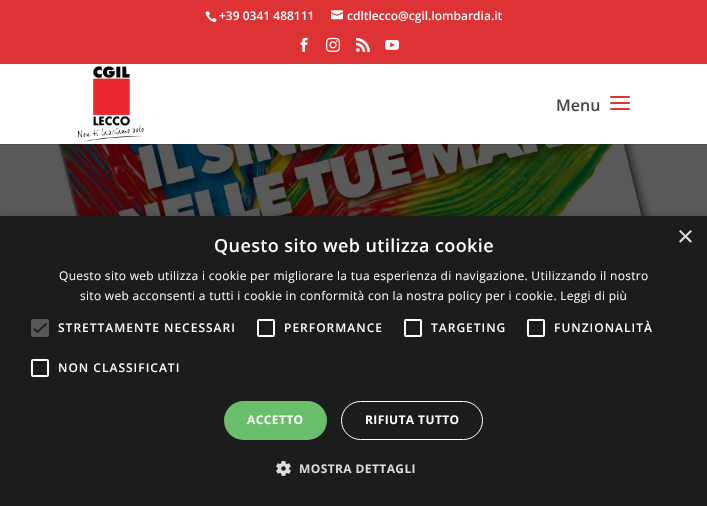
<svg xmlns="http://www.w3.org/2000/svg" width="707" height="506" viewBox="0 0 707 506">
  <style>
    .t1 { font: 600 12px Open Sans; fill: #fff; }
    .t2 { font: 600 16px Open Sans; fill: #444; }
    .t3 { font: 29px Liberation Sans; fill: #ddd; }
    .t4 { font: 600 18px Open Sans; letter-spacing: 0.4px; fill: #fff; }
    .t5 { font: 12px Open Sans; letter-spacing: 0.3px; fill: #fff; }
    .t6 { font: 600 12px Open Sans; letter-spacing: 1px; fill: #fff; }
    .t7 { font: bold 12px Open Sans; letter-spacing: 0.4px; fill: #fff; }
    .t8 { font: bold 12px Open Sans; letter-spacing: 0.4px; fill: #ddd; }
  </style>
  <rect width="100%" height="100%" fill="#fff"/>
  <rect x="0" y="0" width="707" height="64" fill="#dd3334"/>
  <image x="205" y="11" width="12" height="12" href="images/1.png"/>
  <text x="219" y="20" class="t1">+39 0341 488111</text>
  <image x="331" y="10" width="12" height="10" href="images/2.png"/>
  <text x="347" y="20" class="t1">cdltlecco@cgil.lombardia.it</text>
  <image x="300" y="37" width="8" height="15" href="images/3.png"/>
  <image x="326" y="37" width="14" height="15" href="images/4.png"/>
  <image x="356" y="37" width="14" height="15" href="images/5.png"/>
  <image x="385" y="39" width="14" height="11" href="images/6.png"/>
  <image x="0" y="144" width="707" height="72" href="images/9.png"/>
  <rect x="0" y="144" width="707" height="1" fill="#0000001a"/>
  <image x="77" y="66" width="67" height="76" href="images/7.png"/>
  <text x="556" y="111" class="t2">Menu</text>
  <image x="610" y="96" width="20" height="14" href="images/8.png"/>
  <rect x="1" y="218" width="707" height="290" fill="#00000059" filter="blur(4px)"/>
  <rect x="0" y="216" width="707" height="290" fill="#1c1c1c"/>
  <text x="677" y="246" class="t3">×</text>
  <text x="214" y="252" class="t4">Questo sito web utilizza cookie</text>
  <text x="59" y="280" class="t5">Questo sito web utilizza i cookie per migliorare la tua esperienza di navigazione. Utilizzando il nostro</text>
  <text x="80" y="300" class="t5">sito web acconsenti a tutti i cookie in conformità con la nostra policy per i cookie. Leggi di più</text>
  <rect x="31" y="319" width="18" height="18" rx="2" fill="#575757"/>
  <path d="M34 328.5L37.5 332L46.5 323.5" fill="none" stroke="#1c1c1c" stroke-width="1.8"/>
  <text x="58" y="332" class="t6">STRETTAMENTE NECESSARI</text>
  <rect x="258" y="320" width="16" height="16" rx="1" fill="none" stroke="#fff" stroke-width="2"/>
  <text x="284" y="332" class="t6">PERFORMANCE</text>
  <rect x="405" y="320" width="16" height="16" rx="1" fill="none" stroke="#fff" stroke-width="2"/>
  <text x="431" y="332" class="t6">TARGETING</text>
  <rect x="528" y="320" width="16" height="16" rx="1" fill="none" stroke="#fff" stroke-width="2"/>
  <text x="554" y="332" class="t6">FUNZIONALITÀ</text>
  <rect x="32" y="360" width="16" height="16" rx="1" fill="none" stroke="#fff" stroke-width="2"/>
  <text x="58" y="372" class="t6">NON CLASSIFICATI</text>
  <rect x="224" y="401" width="103" height="39" rx="19.5" fill="#6bbe6b"/>
  <text x="247" y="424" class="t7">ACCETTO</text>
  <rect x="341.5" y="401.5" width="141" height="38" rx="19" fill="none" stroke="#fff"/>
  <text x="365" y="424" class="t7">RIFIUTA TUTTO</text>
  <image x="276" y="461" width="15" height="15" href="images/10.png"/>
  <text x="299" y="473" class="t8">MOSTRA DETTAGLI</text>
</svg>
